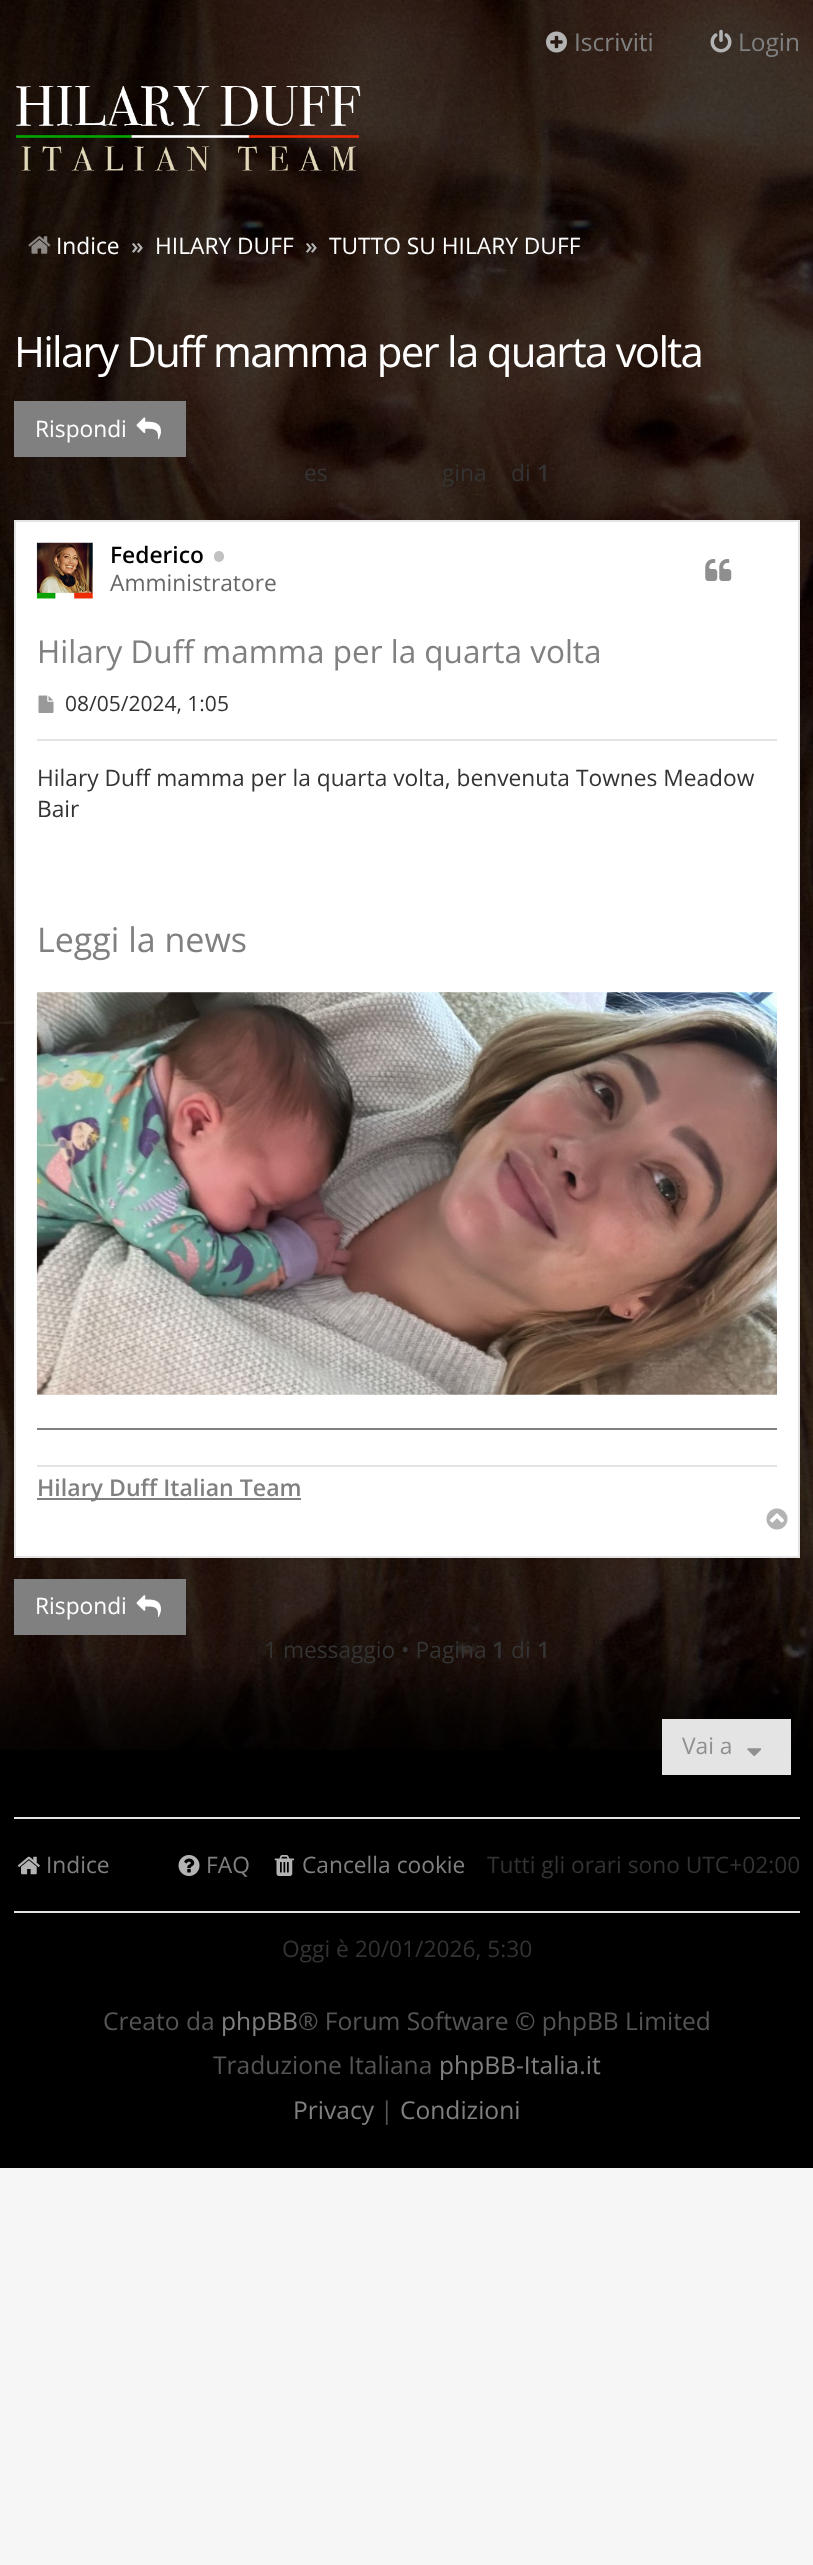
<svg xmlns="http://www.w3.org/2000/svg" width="813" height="2565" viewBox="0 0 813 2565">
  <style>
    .t1 { font: 24.5px Open Sans; fill: #808080; }
    .t2 { font: 22.75px Open Sans; fill: #fff; }
    .t3 { font: 600 22.75px Open Sans; fill: #b4b4b4; }
    .t4 { font: 42px Open Sans; letter-spacing: -1.75px; fill: #fff; }
    .t5 { font: 22.75px Open Sans; fill: #333; }
    .t6 { font: 600 22.75px Open Sans; fill: #333; }
    .t7 { font: 600 22.75px Open Sans; fill: #000; }
    .t8 { font: 22.75px Open Sans; fill: #666; }
    .t9 { font: 31.5px Open Sans; fill: #808080; }
    .t10 { font: 21px Open Sans; fill: #333; }
    .t11 { font: 34px Open Sans; fill: #808080; }
    .t12 { font: 600 23.1px Open Sans; fill: #808080; }
    .t13 { font: 22.75px Open Sans; fill: #8f8f8f; }
    .t14 { font: 22.75px Open Sans; fill: #808080; }
    .t15 { font: 24.6px Open Sans; fill: #555; }
    .t16 { font: 24.6px Open Sans; fill: #808080; }
  </style>
  <rect width="100%" height="100%" fill="#f6f6f6"/>
  <rect x="0" y="1750" width="813" height="418" fill="#000"/>
  <image x="0" y="0" width="813" height="1750" href="images/1.png"/>
  <image x="546" y="31" width="21" height="22" href="images/2.png"/>
  <text x="574" y="51" class="t1">Iscriviti</text>
  <image x="710" y="29" width="22" height="24" href="images/3.png"/>
  <text x="738" y="51" class="t1">Login</text>
  <image x="16" y="86" width="345" height="85" href="images/4.png"/>
  <image x="28" y="236" width="23" height="18" href="images/5.png"/>
  <text x="56" y="254" class="t2">Indice</text>
  <text x="131" y="254" class="t3">»</text>
  <text x="155" y="254" class="t2">HILARY DUFF</text>
  <text x="305" y="254" class="t3">»</text>
  <text x="329" y="254" class="t2">TUTTO SU HILARY DUFF</text>
  <text x="14" y="367" class="t4">Hilary Duff mamma per la quarta volta</text>
  <rect x="14" y="401" width="172" height="56" fill="#808080"/>
  <text x="35" y="437" class="t2">Rispondi</text>
  <image x="136" y="417" width="25" height="23" href="images/6.png"/>
  <text x="304" y="481" class="t5">es</text>
  <text x="442" y="481" class="t5">gina</text>
  <text x="511" y="481" class="t5">di</text>
  <text x="537" y="481" class="t6">1</text>
  <rect x="15" y="521" width="784" height="1036" fill="#fff" stroke="#e4e4e4" stroke-width="2"/>
  <image x="36" y="542" width="57" height="57" href="images/7.png"/>
  <text x="110" y="563" class="t7">Federico</text>
  <rect x="214" y="551" width="10" height="11" rx="5" fill="#c1c1c1"/>
  <text x="110" y="591" class="t8">Amministratore</text>
  <image x="705" y="559" width="27" height="22" href="images/8.png"/>
  <text x="37" y="663" class="t9">Hilary Duff mamma per la quarta volta</text>
  <image x="38" y="695" width="16" height="18" href="images/9.png"/>
  <text x="65" y="711" class="t10">08/05/2024, 1:05</text>
  <rect x="37" y="739" width="740" height="2" fill="#e4e4e4"/>
  <text x="37" y="786" class="t5">Hilary Duff mamma per la quarta volta, benvenuta Townes Meadow</text>
  <text x="37" y="817" class="t5">Bair</text>
  <rect x="37" y="1428" width="740" height="2" fill="#808080"/>
  <text x="37" y="952" class="t11">Leggi la news</text>
  <image x="36" y="992" width="741" height="403" href="images/10.png"/>
  <rect x="37" y="1465" width="740" height="2" fill="#e4e4e4"/>
  <rect x="37" y="1498" width="264" height="2" fill="#808080"/>
  <text x="37" y="1496" class="t12">Hilary Duff Italian Team</text>
  <image x="766" y="1508" width="22" height="22" href="images/11.png"/>
  <rect x="14" y="1579" width="172" height="56" fill="#808080"/>
  <text x="35" y="1614" class="t2">Rispondi</text>
  <image x="136" y="1595" width="25" height="22" href="images/12.png"/>
  <text x="264" y="1658" class="t5">1 messaggio • Pagina</text>
  <text x="492" y="1658" class="t6">1</text>
  <text x="511" y="1658" class="t5">di</text>
  <text x="537" y="1658" class="t6">1</text>
  <rect x="662" y="1719" width="129" height="56" fill="#e4e4e4"/>
  <text x="682" y="1754" class="t13">Vai a</text>
  <image x="747" y="1748" width="15" height="8" href="images/13.png"/>
  <rect x="14" y="1817" width="786" height="2" fill="#e4e4e4"/>
  <rect x="14" y="1911" width="786" height="2" fill="#e4e4e4"/>
  <image x="17" y="1856" width="23" height="19" href="images/14.png"/>
  <text x="46" y="1873" class="t14">Indice</text>
  <image x="178" y="1855" width="22" height="21" href="images/15.png"/>
  <text x="206" y="1873" class="t14">FAQ</text>
  <image x="274" y="1855" width="20" height="21" href="images/16.png"/>
  <text x="302" y="1873" class="t14">Cancella cookie</text>
  <text x="487" y="1873" class="t5">Tutti gli orari sono UTC+02:00</text>
  <text x="282" y="1957" class="t5">Oggi è 20/01/2026, 5:30</text>
  <text x="103" y="2030" class="t15">Creato da</text>
  <text x="221" y="2030" class="t16">phpBB</text>
  <text x="298" y="2030" class="t15">® Forum Software © phpBB Limited</text>
  <text x="213" y="2074" class="t15">Traduzione Italiana</text>
  <text x="439" y="2074" class="t16">phpBB-Italia.it</text>
  <text x="293" y="2119" class="t16">Privacy</text>
  <text x="380" y="2119" class="t15">|</text>
  <text x="400" y="2119" class="t16">Condizioni</text>
</svg>
